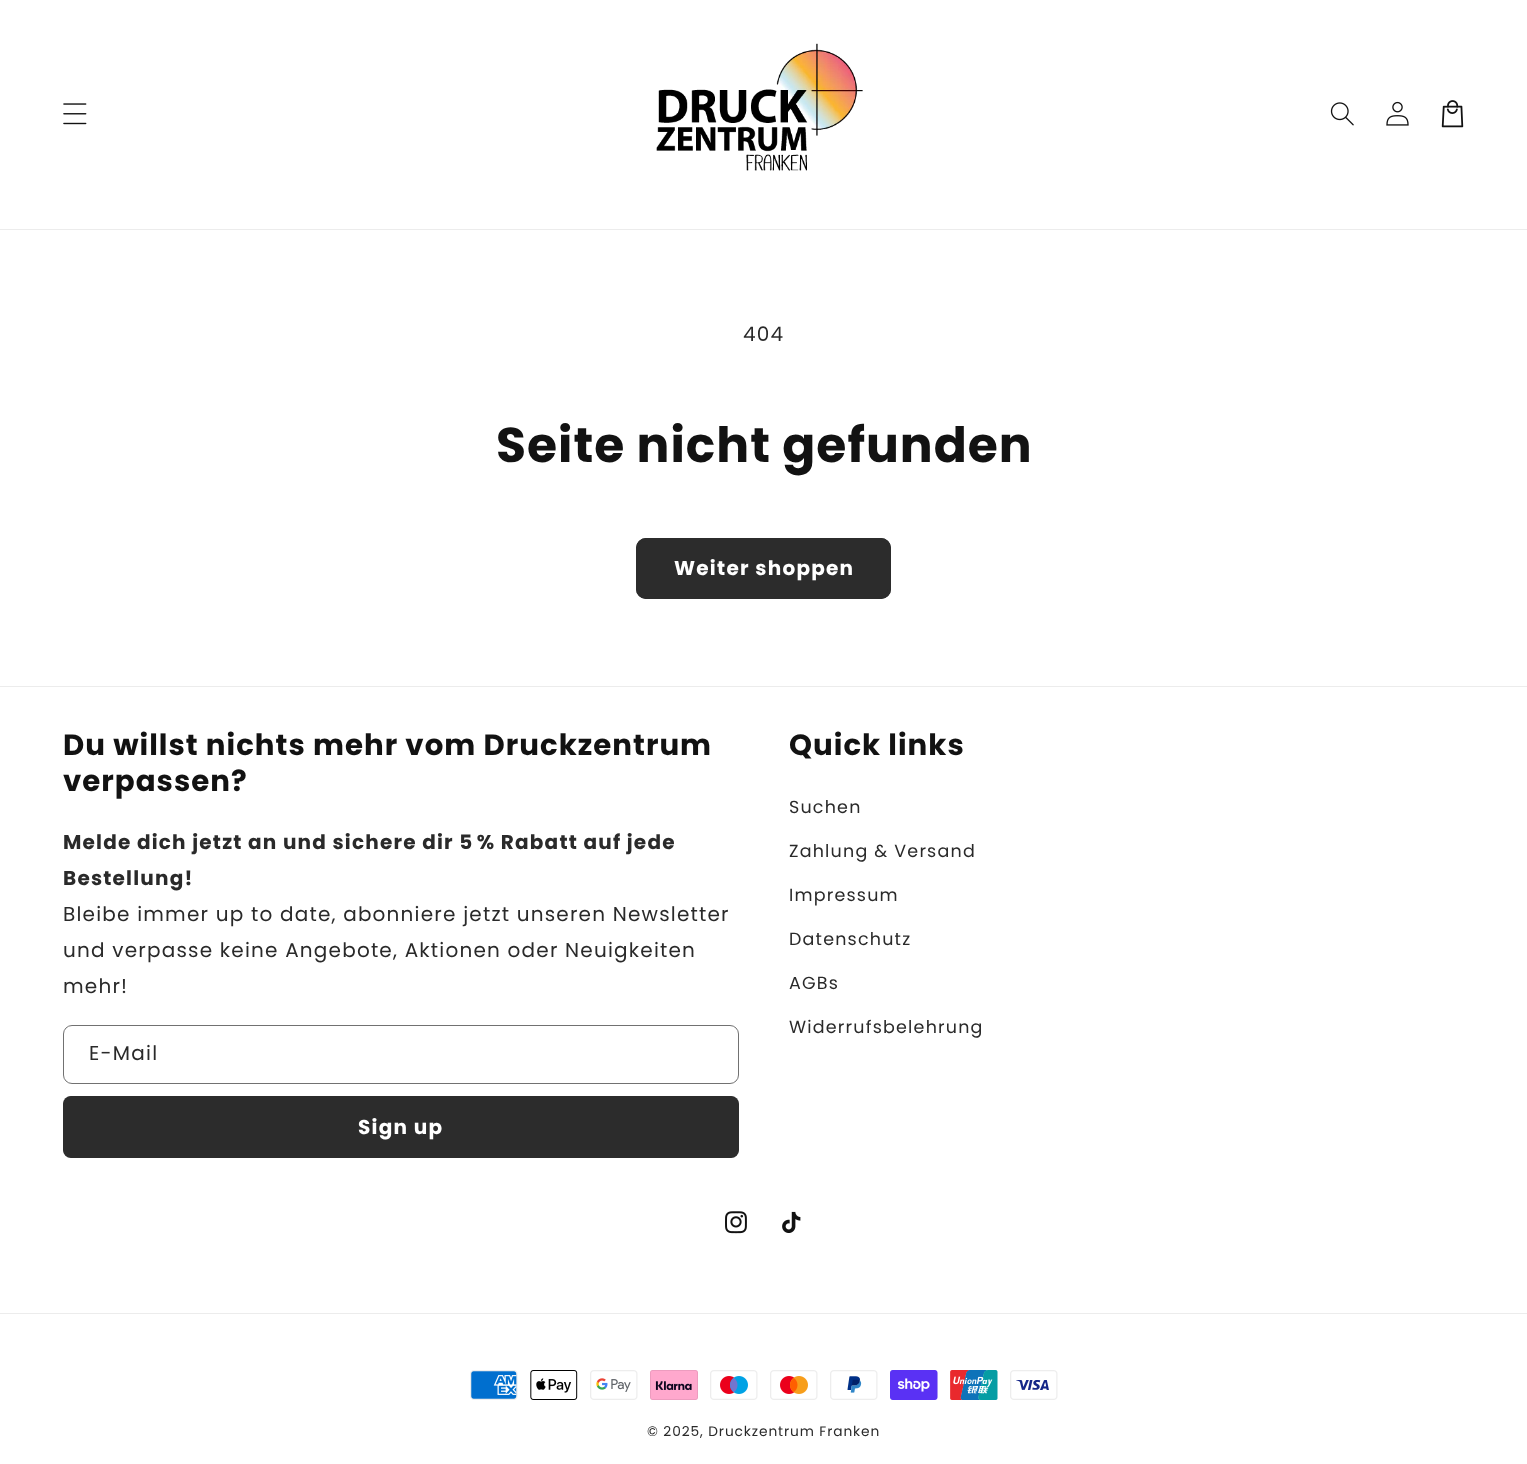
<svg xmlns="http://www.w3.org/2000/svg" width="1527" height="1464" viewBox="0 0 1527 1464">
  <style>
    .t1 { font: 20px Poppins; letter-spacing: 1.2px; fill: #2a2a2a; }
    .t2 { font: bold 48.75px Poppins; letter-spacing: 1px; fill: #121212; }
    .t3 { font: bold 20px Poppins; letter-spacing: 1.25px; fill: #fff; }
    .t4 { font: bold 29.25px Poppins; letter-spacing: 1px; fill: #121212; }
    .t5 { font: bold 20px Poppins; letter-spacing: 1.2px; fill: #2a2a2a; }
    .t6 { font: 20px Poppins; letter-spacing: 1.25px; fill: #2a2a2a; }
    .t7 { font: 17.5px Poppins; letter-spacing: 1.2px; fill: #2a2a2a; }
    .t8 { font: 13.75px Poppins; letter-spacing: 0.9px; fill: #2a2a2a; }
  </style>
  <rect width="100%" height="100%" fill="#fff"/>
  <rect x="0" y="229" width="1527" height="1" fill="#ececec"/>
  <image x="63" y="103" width="24" height="22" href="images/1.png"/>
  <image x="656" y="43" width="207" height="128" href="images/2.png"/>
  <image x="1330" y="102" width="24" height="24" href="images/3.png"/>
  <image x="1386" y="101" width="23" height="25" href="images/4.png"/>
  <image x="1441" y="100" width="23" height="28" href="images/5.png"/>
  <text x="743" y="341" class="t1">404</text>
  <text x="496" y="462" class="t2">Seite nicht gefunden</text>
  <rect x="636" y="538" width="255" height="61" rx="10" fill="#2c2c2c"/>
  <rect x="637.5" y="539.5" width="252" height="58" rx="8.5" fill="none" stroke="#2c2c2c" stroke-width="3"/>
  <text x="674" y="575" class="t3">Weiter shoppen</text>
  <rect x="0" y="686" width="1527" height="1" fill="#ececec"/>
  <text x="63" y="755" class="t4">Du willst nichts mehr vom Druckzentrum</text>
  <text x="63" y="791" class="t4">verpassen?</text>
  <text x="63" y="849" class="t5">Melde dich jetzt an und sichere dir 5 % Rabatt auf jede</text>
  <text x="63" y="885" class="t5">Bestellung!</text>
  <text x="63" y="921" class="t1">Bleibe immer up to date, abonniere jetzt unseren Newsletter</text>
  <text x="63" y="957" class="t1">und verpasse keine Angebote, Aktionen oder Neuigkeiten</text>
  <text x="63" y="993" class="t1">mehr!</text>
  <rect x="63.5" y="1025.5" width="675" height="58" rx="8.5" fill="none" stroke="#717171"/>
  <text x="89" y="1060" class="t6">E-Mail</text>
  <rect x="64.5" y="1097.5" width="673" height="59" rx="8.5" fill="none" stroke="#2c2c2c" stroke-width="3"/>
  <rect x="63" y="1096" width="676" height="62" rx="8" fill="#2c2c2c"/>
  <text x="358" y="1134" class="t3">Sign up</text>
  <text x="789" y="755" class="t4">Quick links</text>
  <text x="789" y="813" class="t7">Suchen</text>
  <text x="789" y="857" class="t7">Zahlung &amp; Versand</text>
  <text x="789" y="901" class="t7">Impressum</text>
  <text x="789" y="945" class="t7">Datenschutz</text>
  <text x="789" y="989" class="t7">AGBs</text>
  <text x="789" y="1033" class="t7">Widerrufsbelehrung</text>
  <image x="725" y="1211" width="22" height="23" href="images/6.png"/>
  <image x="782" y="1211" width="19" height="22" href="images/7.png"/>
  <rect x="0" y="1313" width="1527" height="1" fill="#ececec"/>
  <image x="470" y="1370" width="48" height="30" href="images/8.png"/>
  <image x="530" y="1370" width="48" height="30" href="images/9.png"/>
  <image x="590" y="1370" width="48" height="30" href="images/10.png"/>
  <image x="650" y="1370" width="48" height="30" href="images/11.png"/>
  <image x="710" y="1370" width="48" height="30" href="images/12.png"/>
  <image x="770" y="1370" width="48" height="30" href="images/13.png"/>
  <image x="830" y="1370" width="48" height="30" href="images/14.png"/>
  <image x="890" y="1370" width="48" height="30" href="images/15.png"/>
  <image x="950" y="1370" width="48" height="30" href="images/16.png"/>
  <image x="1010" y="1370" width="48" height="30" href="images/17.png"/>
  <text x="647" y="1436" class="t8">© 2025, Druckzentrum Franken</text>
</svg>
